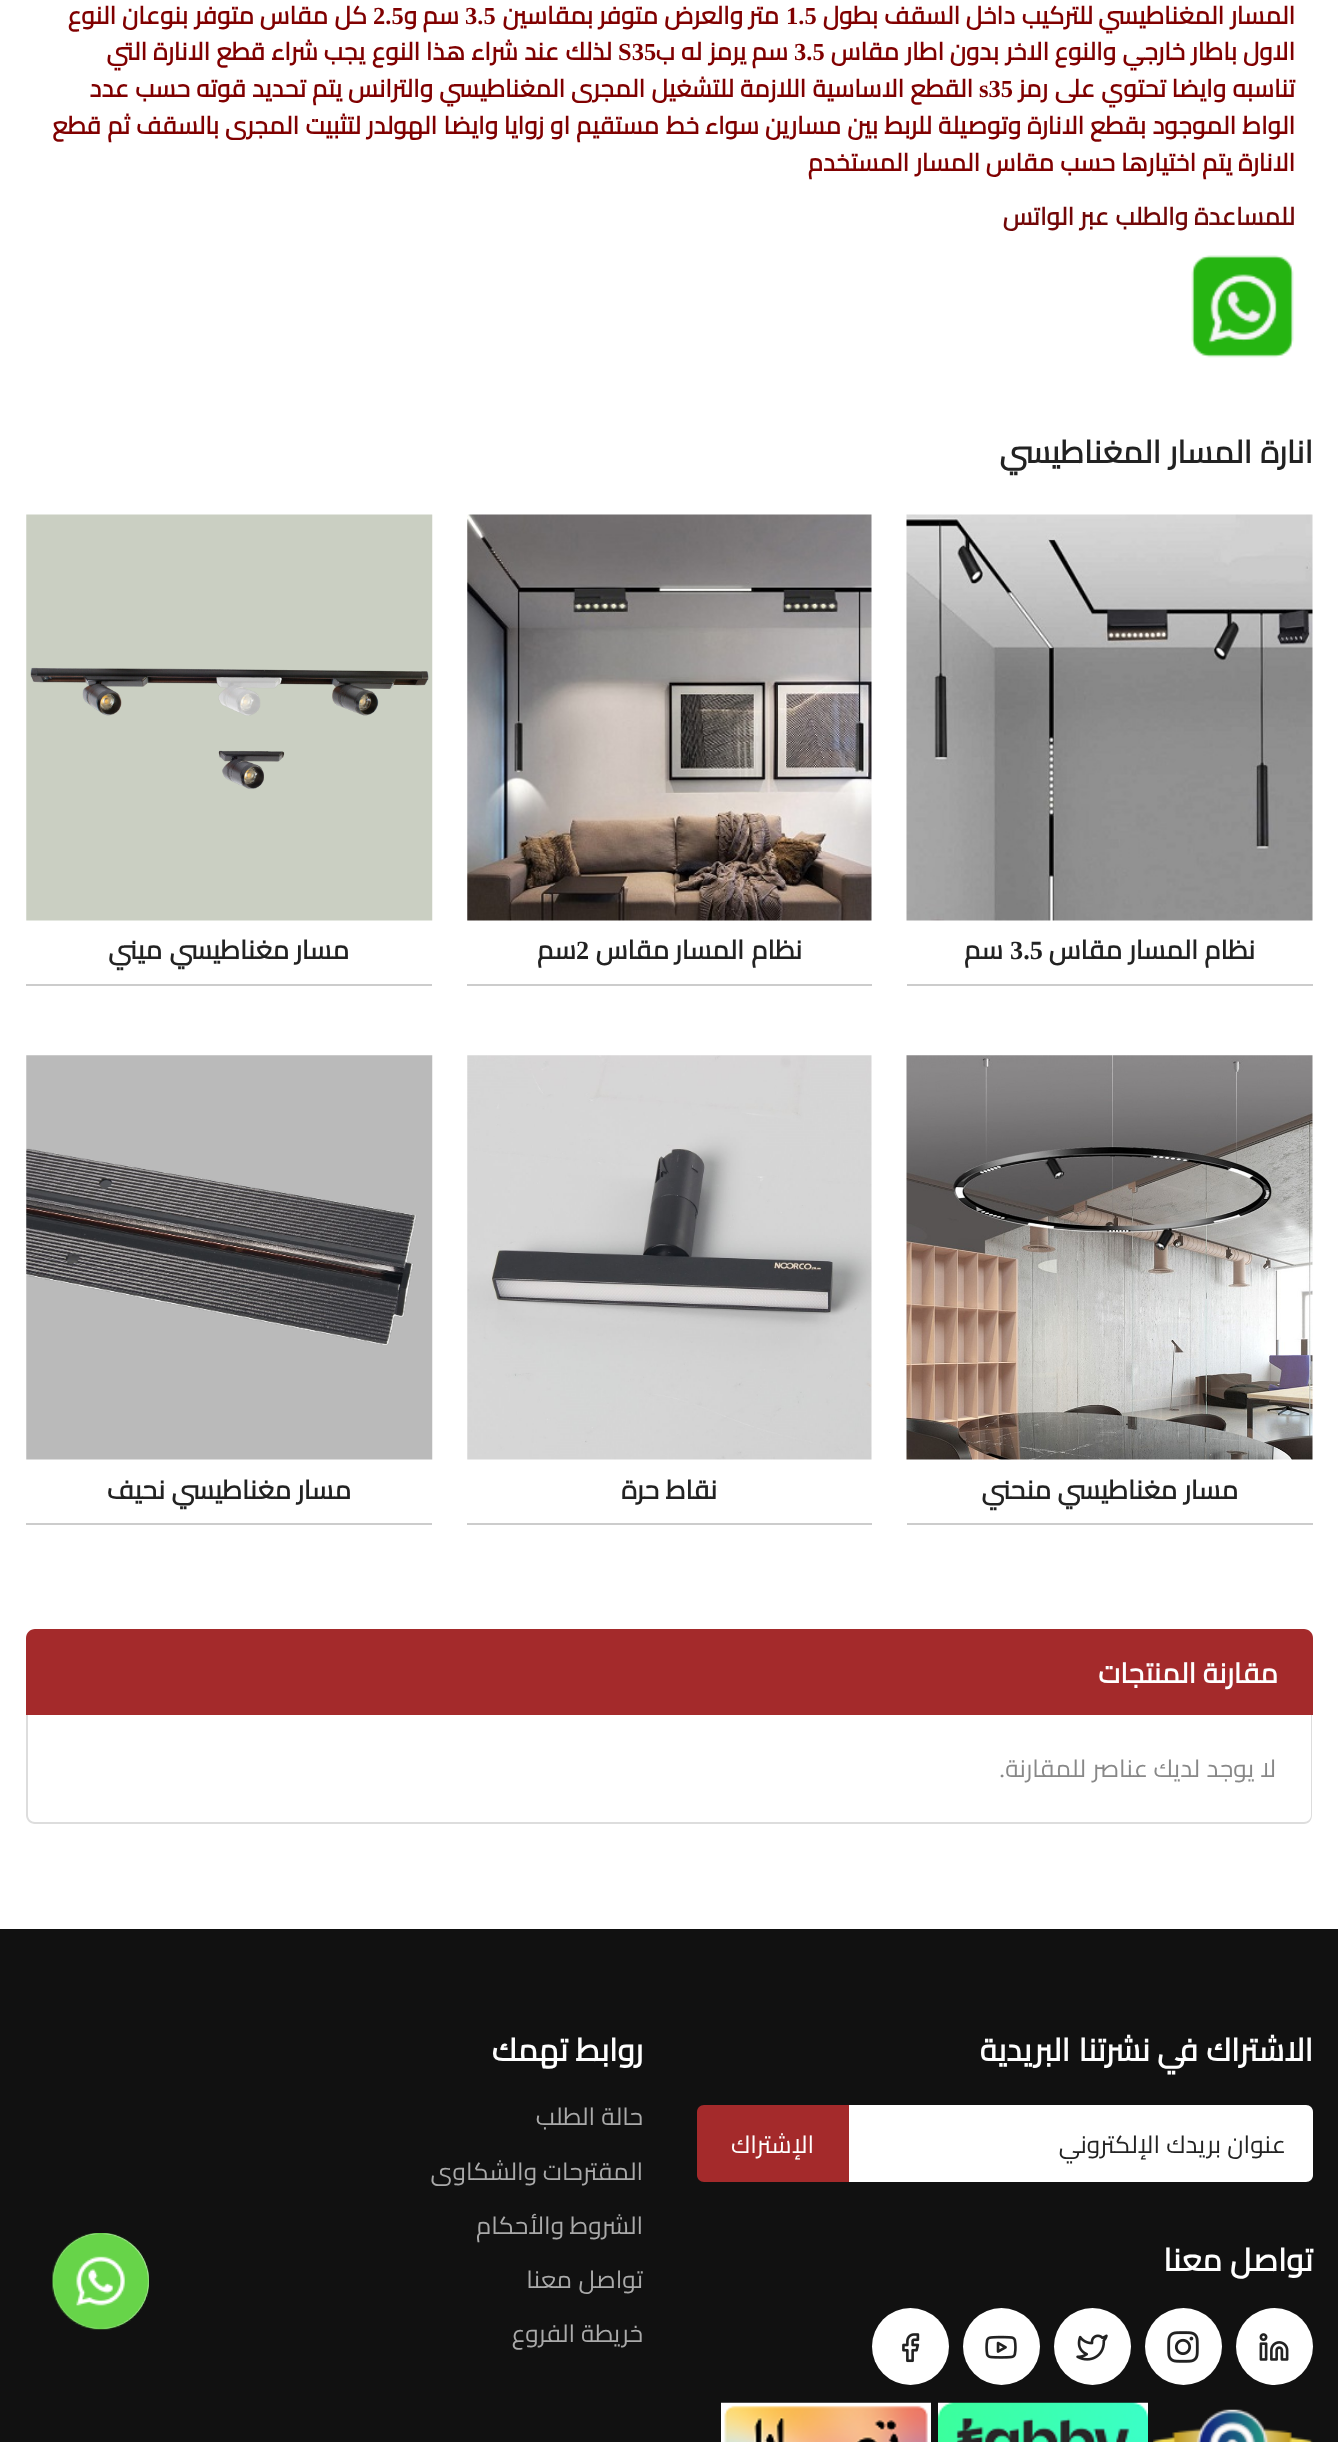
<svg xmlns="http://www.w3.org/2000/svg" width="1338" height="2442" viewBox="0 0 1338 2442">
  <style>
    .t1 { font: bold 24.5px Cairo; direction: rtl; fill: #800000; }
    .t2 { font: bold 24.5px Liberation Serif; fill: #800000; }
    .t3 { font: bold 24.5px Cairo; direction: rtl; fill: #720707; }
    .t4 { font: bold 31.5px Cairo; direction: rtl; fill: #222; }
    .t5 { font: bold 26.25px Cairo; direction: rtl; fill: #222; }
    .t6 { font: bold 26.25px Liberation Serif; fill: #222; }
    .t7 { font: bold 28px Cairo; direction: rtl; fill: #fff; }
    .t8 { font: 24.5px Cairo; direction: rtl; fill: #888; }
    .t9 { font: 24.5px Liberation Serif; direction: rtl; fill: #888; }
    .t10 { font: bold 31.5px Cairo; direction: rtl; fill: #fff; }
    .t11 { font: 24.5px Cairo; direction: rtl; fill: #222; }
    .t12 { font: 24.5px Cairo; direction: rtl; fill: #fff; }
    .t13 { font: 24.5px Cairo; direction: rtl; fill: #aaa; }
  </style>
  <rect width="100%" height="100%" fill="#fff"/>
  <text x="1295" y="24" class="t1">المسار</text>
  <text x="1224" y="24" class="t1">المغناطيسي</text>
  <text x="1093" y="24" class="t1">للتركيب</text>
  <text x="1015" y="24" class="t1">داخل</text>
  <text x="960" y="24" class="t1">السقف</text>
  <text x="878" y="24" class="t1">بطول</text>
  <text x="786" y="24" class="t2">1.5</text>
  <text x="779" y="24" class="t1">متر</text>
  <text x="743" y="24" class="t1">والعرض</text>
  <text x="658" y="24" class="t1">متوفر</text>
  <text x="593" y="24" class="t1">بمقاسين</text>
  <text x="465" y="24" class="t2">3.5</text>
  <text x="459" y="24" class="t1">سم</text>
  <text x="417" y="24" class="t1">و</text>
  <text x="373" y="24" class="t2">2.5</text>
  <text x="367" y="24" class="t1">كل</text>
  <text x="328" y="24" class="t1">مقاس</text>
  <text x="254" y="24" class="t1">متوفر</text>
  <text x="188" y="24" class="t1">بنوعان</text>
  <text x="116" y="24" class="t1">النوع</text>
  <text x="1295" y="60" class="t1">الاول</text>
  <text x="1237" y="60" class="t1">باطار</text>
  <text x="1185" y="60" class="t1">خارجي</text>
  <text x="1116" y="60" class="t1">والنوع</text>
  <text x="1049" y="60" class="t1">الاخر</text>
  <text x="999" y="60" class="t1">بدون</text>
  <text x="944" y="60" class="t1">اطار</text>
  <text x="899" y="60" class="t1">مقاس</text>
  <text x="794" y="60" class="t2">3.5</text>
  <text x="788" y="60" class="t1">سم</text>
  <text x="746" y="60" class="t1">يرمز</text>
  <text x="702" y="60" class="t1">له</text>
  <text x="675" y="60" class="t1">ب</text>
  <text x="618" y="60" class="t2">S35</text>
  <text x="612" y="60" class="t1">لذلك</text>
  <text x="559" y="60" class="t1">عند</text>
  <text x="518" y="60" class="t1">شراء</text>
  <text x="465" y="60" class="t1">هذا</text>
  <text x="420" y="60" class="t1">النوع</text>
  <text x="365" y="60" class="t1">يجب</text>
  <text x="318" y="60" class="t1">شراء</text>
  <text x="265" y="60" class="t1">قطع</text>
  <text x="210" y="60" class="t1">الانارة</text>
  <text x="147" y="60" class="t1">التي</text>
  <text x="1295" y="97" class="t1">تناسبه</text>
  <text x="1226" y="97" class="t1">وايضا</text>
  <text x="1166" y="97" class="t1">تحتوي</text>
  <text x="1095" y="97" class="t1">على</text>
  <text x="1048" y="97" class="t1">رمز</text>
  <text x="979" y="97" class="t2">s35</text>
  <text x="973" y="97" class="t1">القطع</text>
  <text x="904" y="97" class="t1">الاساسية</text>
  <text x="806" y="97" class="t1">اللازمة</text>
  <text x="734" y="97" class="t1">للتشغيل</text>
  <text x="645" y="97" class="t1">المجرى</text>
  <text x="565" y="97" class="t1">المغناطيسي</text>
  <text x="433" y="97" class="t1">والترانس</text>
  <text x="342" y="97" class="t1">يتم</text>
  <text x="306" y="97" class="t1">تحديد</text>
  <text x="246" y="97" class="t1">قوته</text>
  <text x="190" y="97" class="t1">حسب</text>
  <text x="129" y="97" class="t1">عدد</text>
  <text x="1295" y="134" class="t1">الواط</text>
  <text x="1236" y="134" class="t1">الموجود</text>
  <text x="1146" y="134" class="t1">بقطع</text>
  <text x="1084" y="134" class="t1">الانارة</text>
  <text x="1021" y="134" class="t1">وتوصيلة</text>
  <text x="932" y="134" class="t1">للربط</text>
  <text x="878" y="134" class="t1">بين</text>
  <text x="841" y="134" class="t1">مسارين</text>
  <text x="759" y="134" class="t1">سواء</text>
  <text x="699" y="134" class="t1">خط</text>
  <text x="659" y="134" class="t1">مستقيم</text>
  <text x="570" y="134" class="t1">او</text>
  <text x="544" y="134" class="t1">زوايا</text>
  <text x="498" y="134" class="t1">وايضا</text>
  <text x="437" y="134" class="t1">الهولدر</text>
  <text x="361" y="134" class="t1">لتثبيت</text>
  <text x="299" y="134" class="t1">المجرى</text>
  <text x="219" y="134" class="t1">بالسقف</text>
  <text x="130" y="134" class="t1">ثم</text>
  <text x="101" y="134" class="t1">قطع</text>
  <text x="1295" y="171" class="t1">الانارة</text>
  <text x="1232" y="171" class="t1">يتم</text>
  <text x="1196" y="171" class="t1">اختيارها</text>
  <text x="1115" y="171" class="t1">حسب</text>
  <text x="1054" y="171" class="t1">مقاس</text>
  <text x="980" y="171" class="t1">المسار</text>
  <text x="909" y="171" class="t1">المستخدم</text>
  <text x="1295" y="225" class="t3">للمساعدة</text>
  <text x="1188" y="225" class="t3">والطلب</text>
  <text x="1109" y="225" class="t3">عبر</text>
  <text x="1074" y="225" class="t3">الواتس</text>
  <image x="1191" y="255" width="103" height="103" href="images/1.png"/>
  <text x="1313" y="463" class="t4">انارة</text>
  <text x="1252" y="463" class="t4">المسار</text>
  <text x="1161" y="463" class="t4">المغناطيسي</text>
  <rect x="907" y="984" width="406" height="2" fill="#ccc"/>
  <image x="906" y="514" width="407" height="407" href="images/2.png"/>
  <text x="1255" y="959" class="t5">نظام</text>
  <text x="1198" y="959" class="t5">المسار</text>
  <text x="1122" y="959" class="t5">مقاس</text>
  <text x="1010" y="959" class="t6">3.5</text>
  <text x="1003" y="959" class="t5">سم</text>
  <rect x="467" y="984" width="405" height="2" fill="#ccc"/>
  <image x="467" y="514" width="405" height="407" href="images/3.png"/>
  <text x="802" y="959" class="t5">نظام</text>
  <text x="744" y="959" class="t5">المسار</text>
  <text x="669" y="959" class="t5">مقاس</text>
  <text x="576" y="959" class="t6">2</text>
  <text x="576" y="959" class="t5">سم</text>
  <rect x="26" y="984" width="406" height="2" fill="#ccc"/>
  <image x="26" y="514" width="407" height="407" href="images/4.png"/>
  <text x="349" y="959" class="t5">مسار</text>
  <text x="289" y="959" class="t5">مغناطيسي</text>
  <text x="162" y="959" class="t5">ميني</text>
  <rect x="907" y="1523" width="406" height="2" fill="#ccc"/>
  <image x="906" y="1055" width="407" height="405" href="images/5.png"/>
  <text x="1238" y="1499" class="t5">مسار</text>
  <text x="1177" y="1499" class="t5">مغناطيسي</text>
  <text x="1051" y="1499" class="t5">منحني</text>
  <rect x="467" y="1523" width="405" height="2" fill="#ccc"/>
  <image x="467" y="1055" width="405" height="405" href="images/6.png"/>
  <text x="717" y="1499" class="t5">نقاط</text>
  <text x="659" y="1499" class="t5">حرة</text>
  <rect x="26" y="1523" width="406" height="2" fill="#ccc"/>
  <image x="26" y="1055" width="407" height="405" href="images/7.png"/>
  <text x="351" y="1499" class="t5">مسار</text>
  <text x="291" y="1499" class="t5">مغناطيسي</text>
  <text x="165" y="1499" class="t5">نحيف</text>
  <path d="M35 1629H1304C1309 1629 1313 1633 1313 1638V1715H26V1638C26 1633 30 1629 35 1629Z" fill="#a42a2b"/>
  <text x="1278" y="1683" class="t7">مقارنة</text>
  <text x="1196" y="1683" class="t7">المنتجات</text>
  <path d="M26 1715H1312V1815C1312 1820 1309 1824 1304 1824H35C30 1824 26 1820 26 1815ZM28 1715H1311V1815C1311 1819 1308 1822 1304 1822H35C31 1822 28 1819 28 1815Z" fill="#ddd" fill-rule="evenodd"/>
  <text x="1276" y="1777" class="t8">لا</text>
  <text x="1254" y="1777" class="t8">يوجد</text>
  <text x="1200" y="1777" class="t8">لديك</text>
  <text x="1148" y="1777" class="t8">عناصر</text>
  <text x="1086" y="1777" class="t8">للمقارنة</text>
  <text x="1005" y="1777" class="t9">.</text>
  <rect x="0" y="1929" width="1338" height="513" fill="#111"/>
  <text x="1313" y="2061" class="t10">الاشتراك</text>
  <text x="1198" y="2061" class="t10">في</text>
  <text x="1150" y="2061" class="t10">نشرتنا</text>
  <text x="1070" y="2061" class="t10">البريدية</text>
  <path d="M849 2105H1306C1310 2105 1313 2108 1313 2112V2175C1313 2179 1310 2182 1306 2182H849Z" fill="#fff"/>
  <text x="1286" y="2153" class="t11">عنوان</text>
  <text x="1221" y="2153" class="t11">بريدك</text>
  <text x="1160" y="2153" class="t11">الإلكتروني</text>
  <path d="M704 2105H849V2182H704C700 2182 697 2179 697 2175V2112C697 2108 700 2105 704 2105Z" fill="#a42a2b"/>
  <text x="814" y="2153" class="t12">الإشتراك</text>
  <text x="1313" y="2271" class="t10">تواصل</text>
  <text x="1222" y="2271" class="t10">معنا</text>
  <circle cx="1274.5" cy="2346.5" r="38.5" fill="#fff"/>
  <image x="1259" y="2333" width="30" height="28" href="images/8.png"/>
  <circle cx="1183.5" cy="2346.5" r="38.5" fill="#fff"/>
  <image x="1167" y="2331" width="32" height="32" href="images/9.png"/>
  <circle cx="1092.5" cy="2346.5" r="38.5" fill="#fff"/>
  <image x="1076" y="2334" width="32" height="27" href="images/10.png"/>
  <circle cx="1001.5" cy="2346.5" r="38.5" fill="#fff"/>
  <image x="985" y="2335" width="32" height="24" href="images/11.png"/>
  <circle cx="910.5" cy="2346.5" r="38.5" fill="#fff"/>
  <image x="902" y="2333" width="18" height="30" href="images/12.png"/>
  <image x="1153" y="2409" width="160" height="33" href="images/13.png"/>
  <image x="938" y="2402" width="210" height="40" href="images/14.png"/>
  <image x="721" y="2402" width="210" height="40" href="images/15.png"/>
  <text x="643" y="2061" class="t10">روابط</text>
  <text x="568" y="2061" class="t10">تهمك</text>
  <text x="643" y="2125" class="t13">حالة</text>
  <text x="595" y="2125" class="t13">الطلب</text>
  <text x="643" y="2180" class="t13">المقترحات</text>
  <text x="537" y="2180" class="t13">والشكاوى</text>
  <text x="643" y="2234" class="t13">الشروط</text>
  <text x="564" y="2234" class="t13">والأحكام</text>
  <text x="643" y="2288" class="t13">تواصل</text>
  <text x="572" y="2288" class="t13">معنا</text>
  <text x="643" y="2342" class="t13">خريطة</text>
  <text x="575" y="2342" class="t13">الفروع</text>
  <circle cx="101" cy="2281" r="48" fill="#fff"/>
  <image x="52" y="2233" width="97" height="97" href="images/16.png"/>
</svg>
